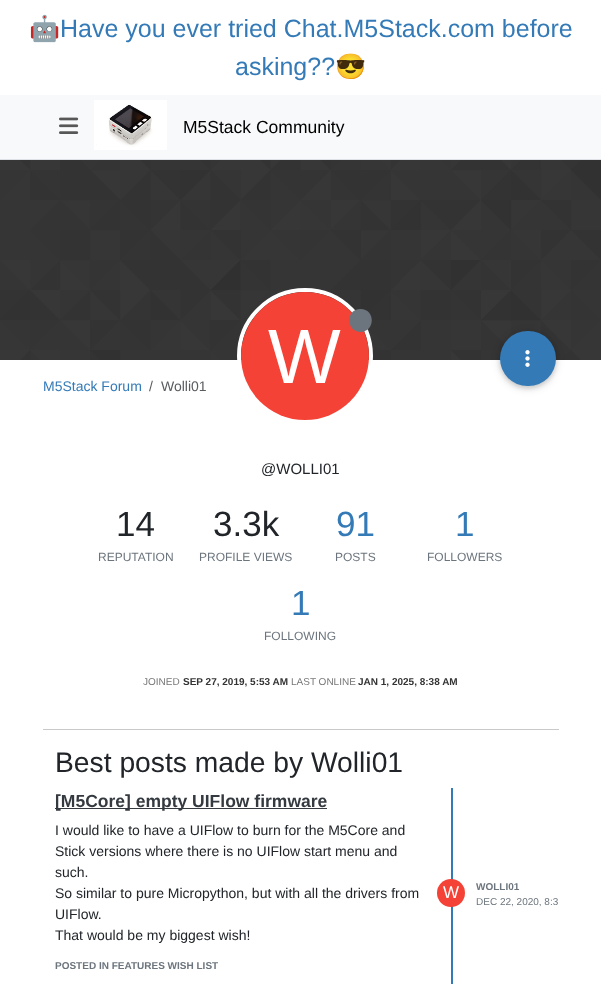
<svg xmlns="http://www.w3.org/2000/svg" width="601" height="984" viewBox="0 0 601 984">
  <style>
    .t1 { font: 25px Noto Color Emoji; fill: #337ab7; }
    .t2 { font: 25px Liberation Sans; fill: #337ab7; }
    .t3 { font: 17.5px Liberation Sans; fill: #000; }
    .t4 { font: 77px Liberation Sans; fill: #fff; }
    .t5 { font: 14px Liberation Sans; fill: #337ab7; }
    .t6 { font: 14px Liberation Sans; fill: #595c5f; }
    .t7 { font: 15px Liberation Sans; fill: #212529; }
    .t8 { font: 35px Liberation Sans; fill: #212529; }
    .t9 { font: 12px Liberation Sans; fill: #6c757d; }
    .t10 { font: 35px Liberation Sans; fill: #337ab7; }
    .t11 { font: 10px Liberation Sans; fill: #777; }
    .t12 { font: bold 10px Liberation Sans; fill: #333; }
    .t13 { font: 28.25px Liberation Sans; fill: #212529; }
    .t14 { font: bold 17.5px Liberation Sans; fill: #343a40; }
    .t15 { font: 14px Liberation Sans; fill: #212529; }
    .t16 { font: 17px Liberation Sans; fill: #fff; }
    .t17 { font: bold 10px Liberation Sans; fill: #6c757d; }
    .t18 { font: 10px Liberation Sans; fill: #6c757d; }
  </style>
  <rect width="100%" height="100%" fill="#fff"/>
  <text x="29" y="37" class="t1">🤖</text>
  <text x="60" y="37" class="t2">Have you ever tried Chat.M5Stack.com before</text>
  <text x="235" y="75" class="t2">asking??</text>
  <text x="335" y="75" class="t1">😎</text>
  <rect x="0" y="95" width="601" height="64" fill="#f8f9fa"/>
  <rect x="0" y="159" width="601" height="1" fill="#dee2e6"/>
  <image x="59" y="117" width="20" height="17" href="images/1.png"/>
  <image x="94" y="100" width="73" height="50" href="images/2.png"/>
  <text x="183" y="133" class="t3">M5Stack Community</text>
  <image x="0" y="160" width="601" height="200" href="images/3.png"/>
  <circle cx="305" cy="356" r="66" fill="none" stroke="#fff" stroke-width="4"/>
  <circle cx="305" cy="356" r="64" fill="#f44336"/>
  <path d="M360.5 332C375.5 331.5 375.5 309 360.5 309C345.5 309 345.5 331.5 360.5 332Z" fill="#6c757d"/>
  <text x="268" y="383" class="t4">W</text>
  <rect x="500" y="333" width="56" height="55" rx="27.5" fill="#0000001f" filter="blur(5px)"/>
  <rect x="500" y="333" width="56" height="55" rx="27.5" fill="#00000029" filter="blur(2.5px)"/>
  <rect x="500" y="331" width="56" height="55" rx="27.5" fill="#337ab7"/>
  <image x="525" y="350" width="5" height="17" href="images/4.png"/>
  <text x="43" y="391" class="t5">M5Stack Forum</text>
  <text x="149" y="391" class="t6">/</text>
  <text x="161" y="391" class="t6">Wolli01</text>
  <text x="261" y="474" class="t7">@WOLLI01</text>
  <text x="116" y="536" class="t8">14</text>
  <text x="98" y="561" class="t9">REPUTATION</text>
  <text x="213" y="536" class="t8">3.3k</text>
  <text x="199" y="561" class="t9">PROFILE VIEWS</text>
  <text x="336" y="536" class="t10">91</text>
  <text x="335" y="561" class="t9">POSTS</text>
  <text x="455" y="536" class="t10">1</text>
  <text x="427" y="561" class="t9">FOLLOWERS</text>
  <text x="291" y="615" class="t10">1</text>
  <text x="264" y="640" class="t9">FOLLOWING</text>
  <text x="143" y="685" class="t11">JOINED</text>
  <text x="183" y="685" class="t12">SEP 27, 2019, 5:53 AM</text>
  <text x="291" y="685" class="t11">LAST ONLINE</text>
  <text x="358" y="685" class="t12">JAN 1, 2025, 8:38 AM</text>
  <rect x="43" y="729" width="516" height="1" fill="#c8c9ca"/>
  <text x="55" y="772" class="t13">Best posts made by Wolli01</text>
  <rect x="451" y="788" width="2" height="196" fill="#337ab7"/>
  <rect x="55" y="808" width="272" height="1" fill="#343a40"/>
  <text x="55" y="807" class="t14">[M5Core] empty UIFlow firmware</text>
  <text x="55" y="835" class="t15">I would like to have a UIFlow to burn for the M5Core and</text>
  <text x="55" y="856" class="t15">Stick versions where there is no UIFlow start menu and</text>
  <text x="55" y="877" class="t15">such.</text>
  <text x="55" y="898" class="t15">So similar to pure Micropython, but with all the drivers from</text>
  <text x="55" y="919" class="t15">UIFlow.</text>
  <text x="55" y="940" class="t15">That would be my biggest wish!</text>
  <circle cx="451" cy="893" r="14" fill="#f44336"/>
  <text x="443" y="898" class="t16">W</text>
  <text x="476" y="890" class="t17">WOLLI01</text>
  <text x="476" y="905" class="t18">DEC 22, 2020, 8:3</text>
  <text x="55" y="969" class="t17">POSTED IN FEATURES WISH LIST</text>
</svg>
